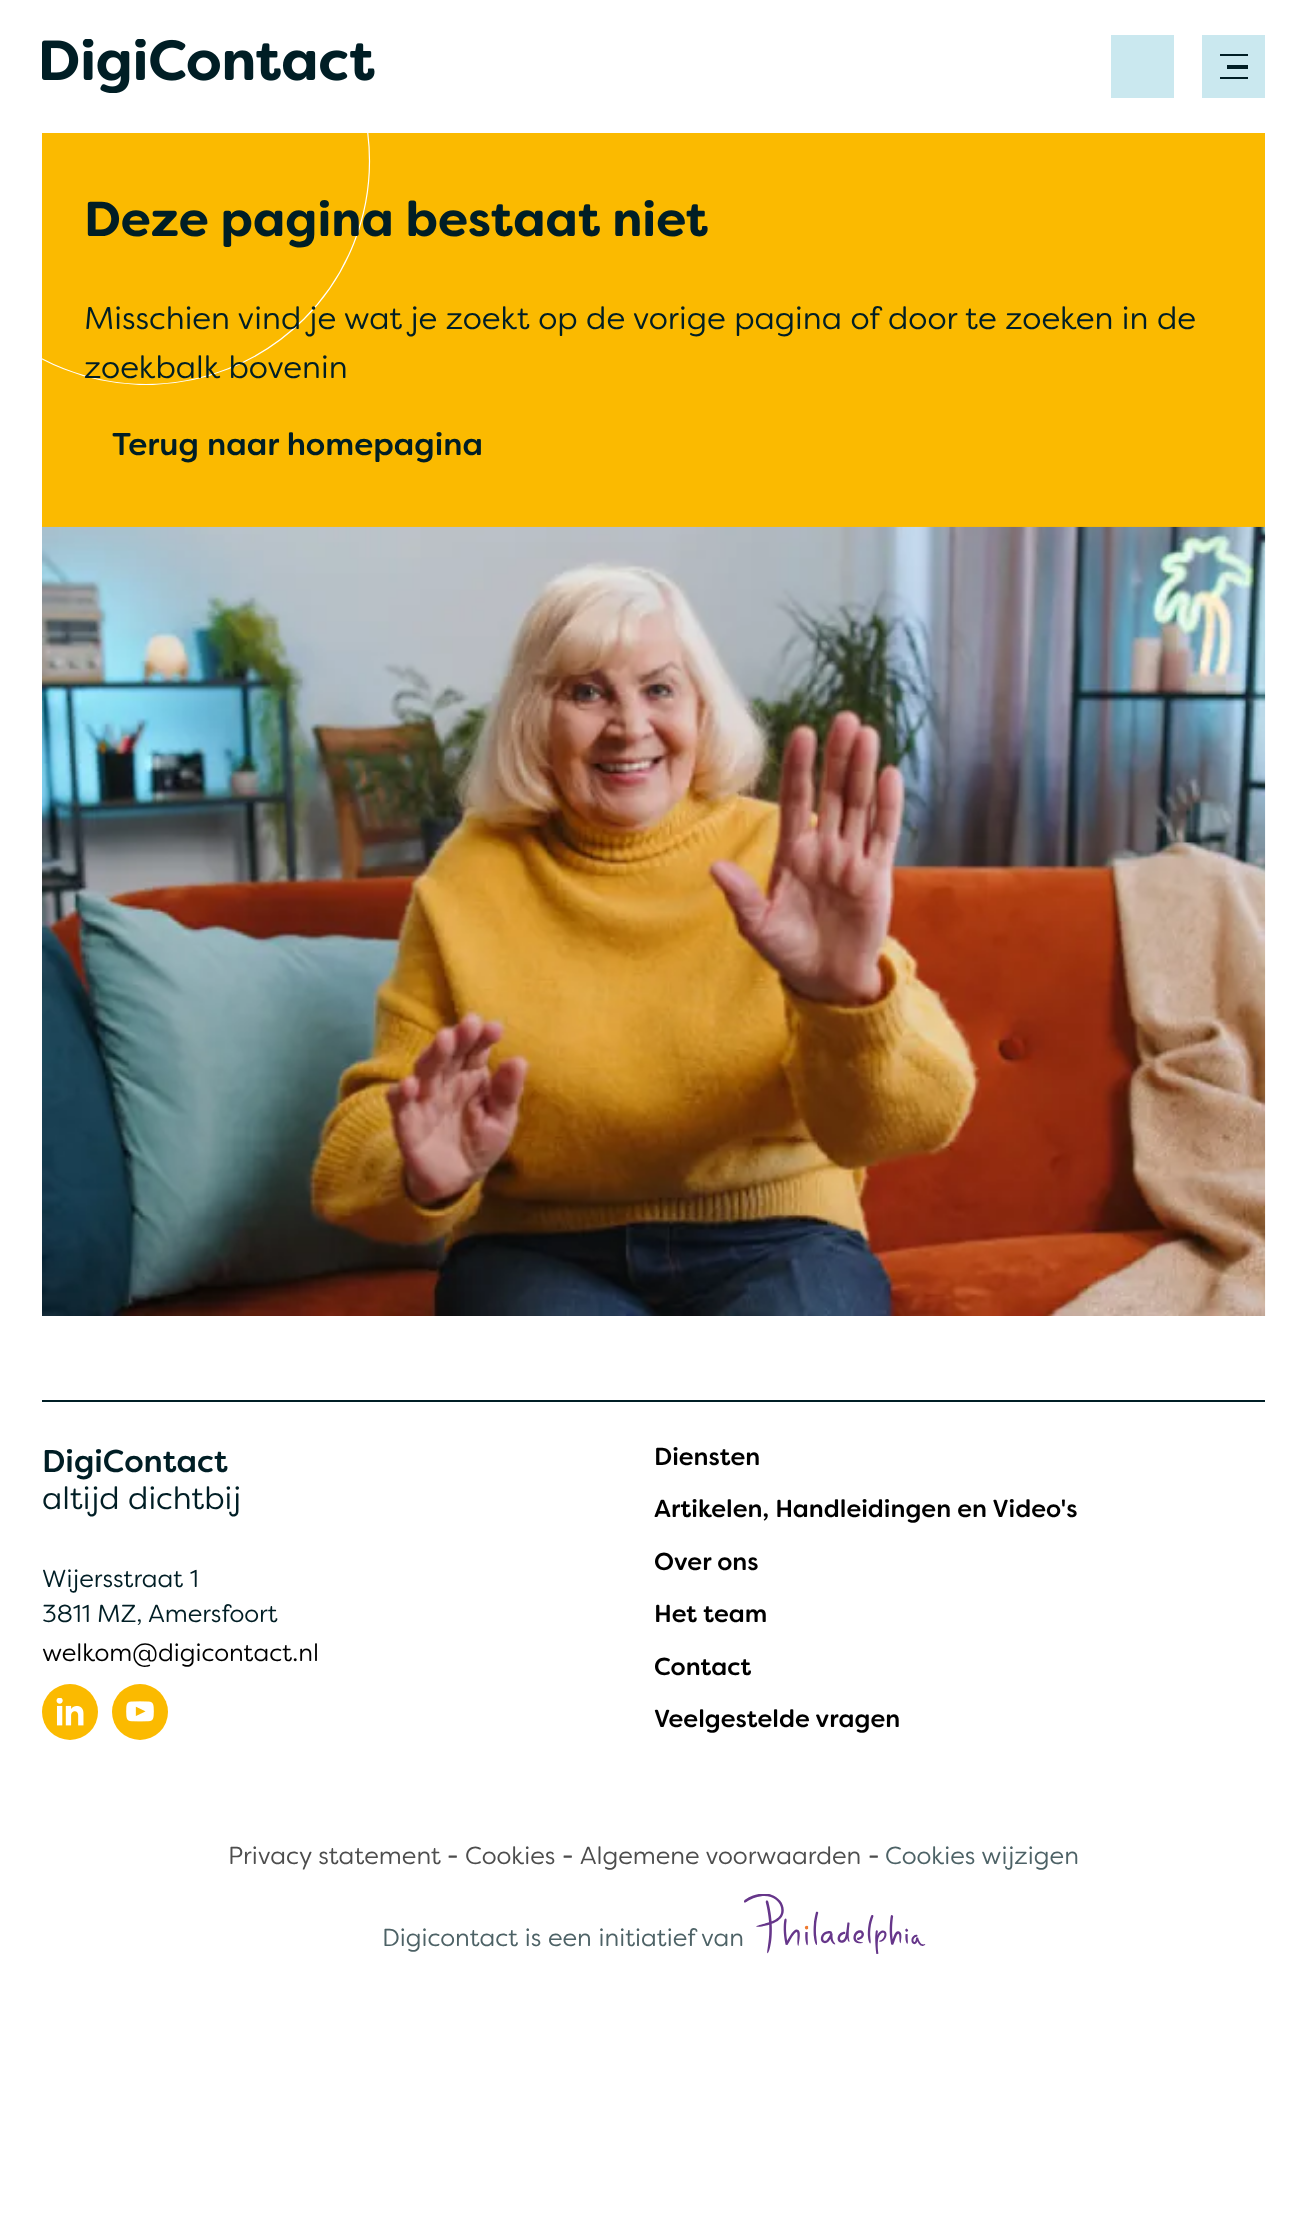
<svg xmlns="http://www.w3.org/2000/svg" width="1307" height="2232" viewBox="0 0 1307 2232">
  <style>
    .t1 { font: bold 49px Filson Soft; fill: #001e25; }
    .t2 { font: 31.5px Filson Soft; fill: #001e25; }
    .t3 { font: 500 31.5px Filson Soft; fill: #001e25; }
    .t4 { font: 24.5px Filson Soft; fill: #001e25; }
    .t5 { font: 24.5px Filson Soft; fill: #000; }
    .t6 { font: 500 24.5px Filson Soft; fill: #000; }
    .t7 { font: 24.5px Filson Soft; fill: #4d4d4d; }
    .t8 { font: 24.5px 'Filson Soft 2'; fill: #4d4d4d; }
    .t9 { font: 24.5px Filson Soft; fill: #4d6266; }
  </style>
  <defs>
    <clipPath id="clip1"><rect x="42" y="133" width="432" height="252"/></clipPath>
  </defs>
  <rect width="100%" height="100%" fill="#fff"/>
  <image x="42" y="39" width="333" height="54" href="images/1.png"/>
  <rect x="1111" y="35" width="63" height="63" fill="#cae8ef"/>
  <rect x="1202" y="35" width="63" height="63" fill="#cae8ef"/>
  <rect x="1220" y="54" width="28" height="2" fill="#001e25"/>
  <rect x="1227" y="65" width="21" height="4" fill="#001e25"/>
  <rect x="1220" y="77" width="28" height="2" fill="#001e25"/>
  <rect x="42" y="133" width="1223" height="394" fill="#fbba00"/>
  <g clip-path="url(#clip1)">
    <circle cx="146" cy="161" r="223.5" fill="none" stroke="#fff" stroke-width="1.2"/>
  </g>
  <text x="84" y="236" class="t1">Deze pagina bestaat niet</text>
  <text x="84" y="329" class="t2">Misschien vind je wat je zoekt op de vorige pagina of door te zoeken in de</text>
  <text x="84" y="378" class="t2">zoekbalk bovenin</text>
  <text x="112" y="455" class="t3">Terug naar homepagina</text>
  <image x="42" y="526" width="1224" height="790" href="images/2.png"/>
  <rect x="42" y="1400" width="1223" height="2" fill="#001e25"/>
  <text x="42" y="1472" class="t3">DigiContact</text>
  <text x="42" y="1509" class="t2">altijd dichtbij</text>
  <text x="42" y="1587" class="t4">Wijersstraat 1</text>
  <text x="42" y="1622" class="t4">3811 MZ, Amersfoort</text>
  <text x="42" y="1661" class="t5">welkom@digicontact.nl</text>
  <circle cx="70" cy="1712" r="28" fill="#fbba00"/>
  <image x="56" y="1698" width="28" height="28" href="images/3.png"/>
  <circle cx="140" cy="1712" r="28" fill="#fbba00"/>
  <image x="126" y="1701" width="28" height="21" href="images/4.png"/>
  <text x="654" y="1465" class="t6">Diensten</text>
  <text x="654" y="1517" class="t6">Artikelen, Handleidingen en Video's</text>
  <text x="654" y="1570" class="t6">Over ons</text>
  <text x="654" y="1622" class="t6">Het team</text>
  <text x="654" y="1675" class="t6">Contact</text>
  <text x="654" y="1727" class="t6">Veelgestelde vragen</text>
  <text x="228" y="1864" class="t7">Privacy statement</text>
  <text x="447" y="1864" class="t8">-</text>
  <text x="465" y="1864" class="t7">Cookies</text>
  <text x="562" y="1864" class="t8">-</text>
  <text x="580" y="1864" class="t7">Algemene voorwaarden</text>
  <text x="868" y="1864" class="t8">-</text>
  <text x="885" y="1864" class="t9">Cookies wijzigen</text>
  <text x="382" y="1946" class="t9">Digicontact is een initiatief van</text>
  <image x="744" y="1894" width="182" height="60" href="images/5.png"/>
</svg>
